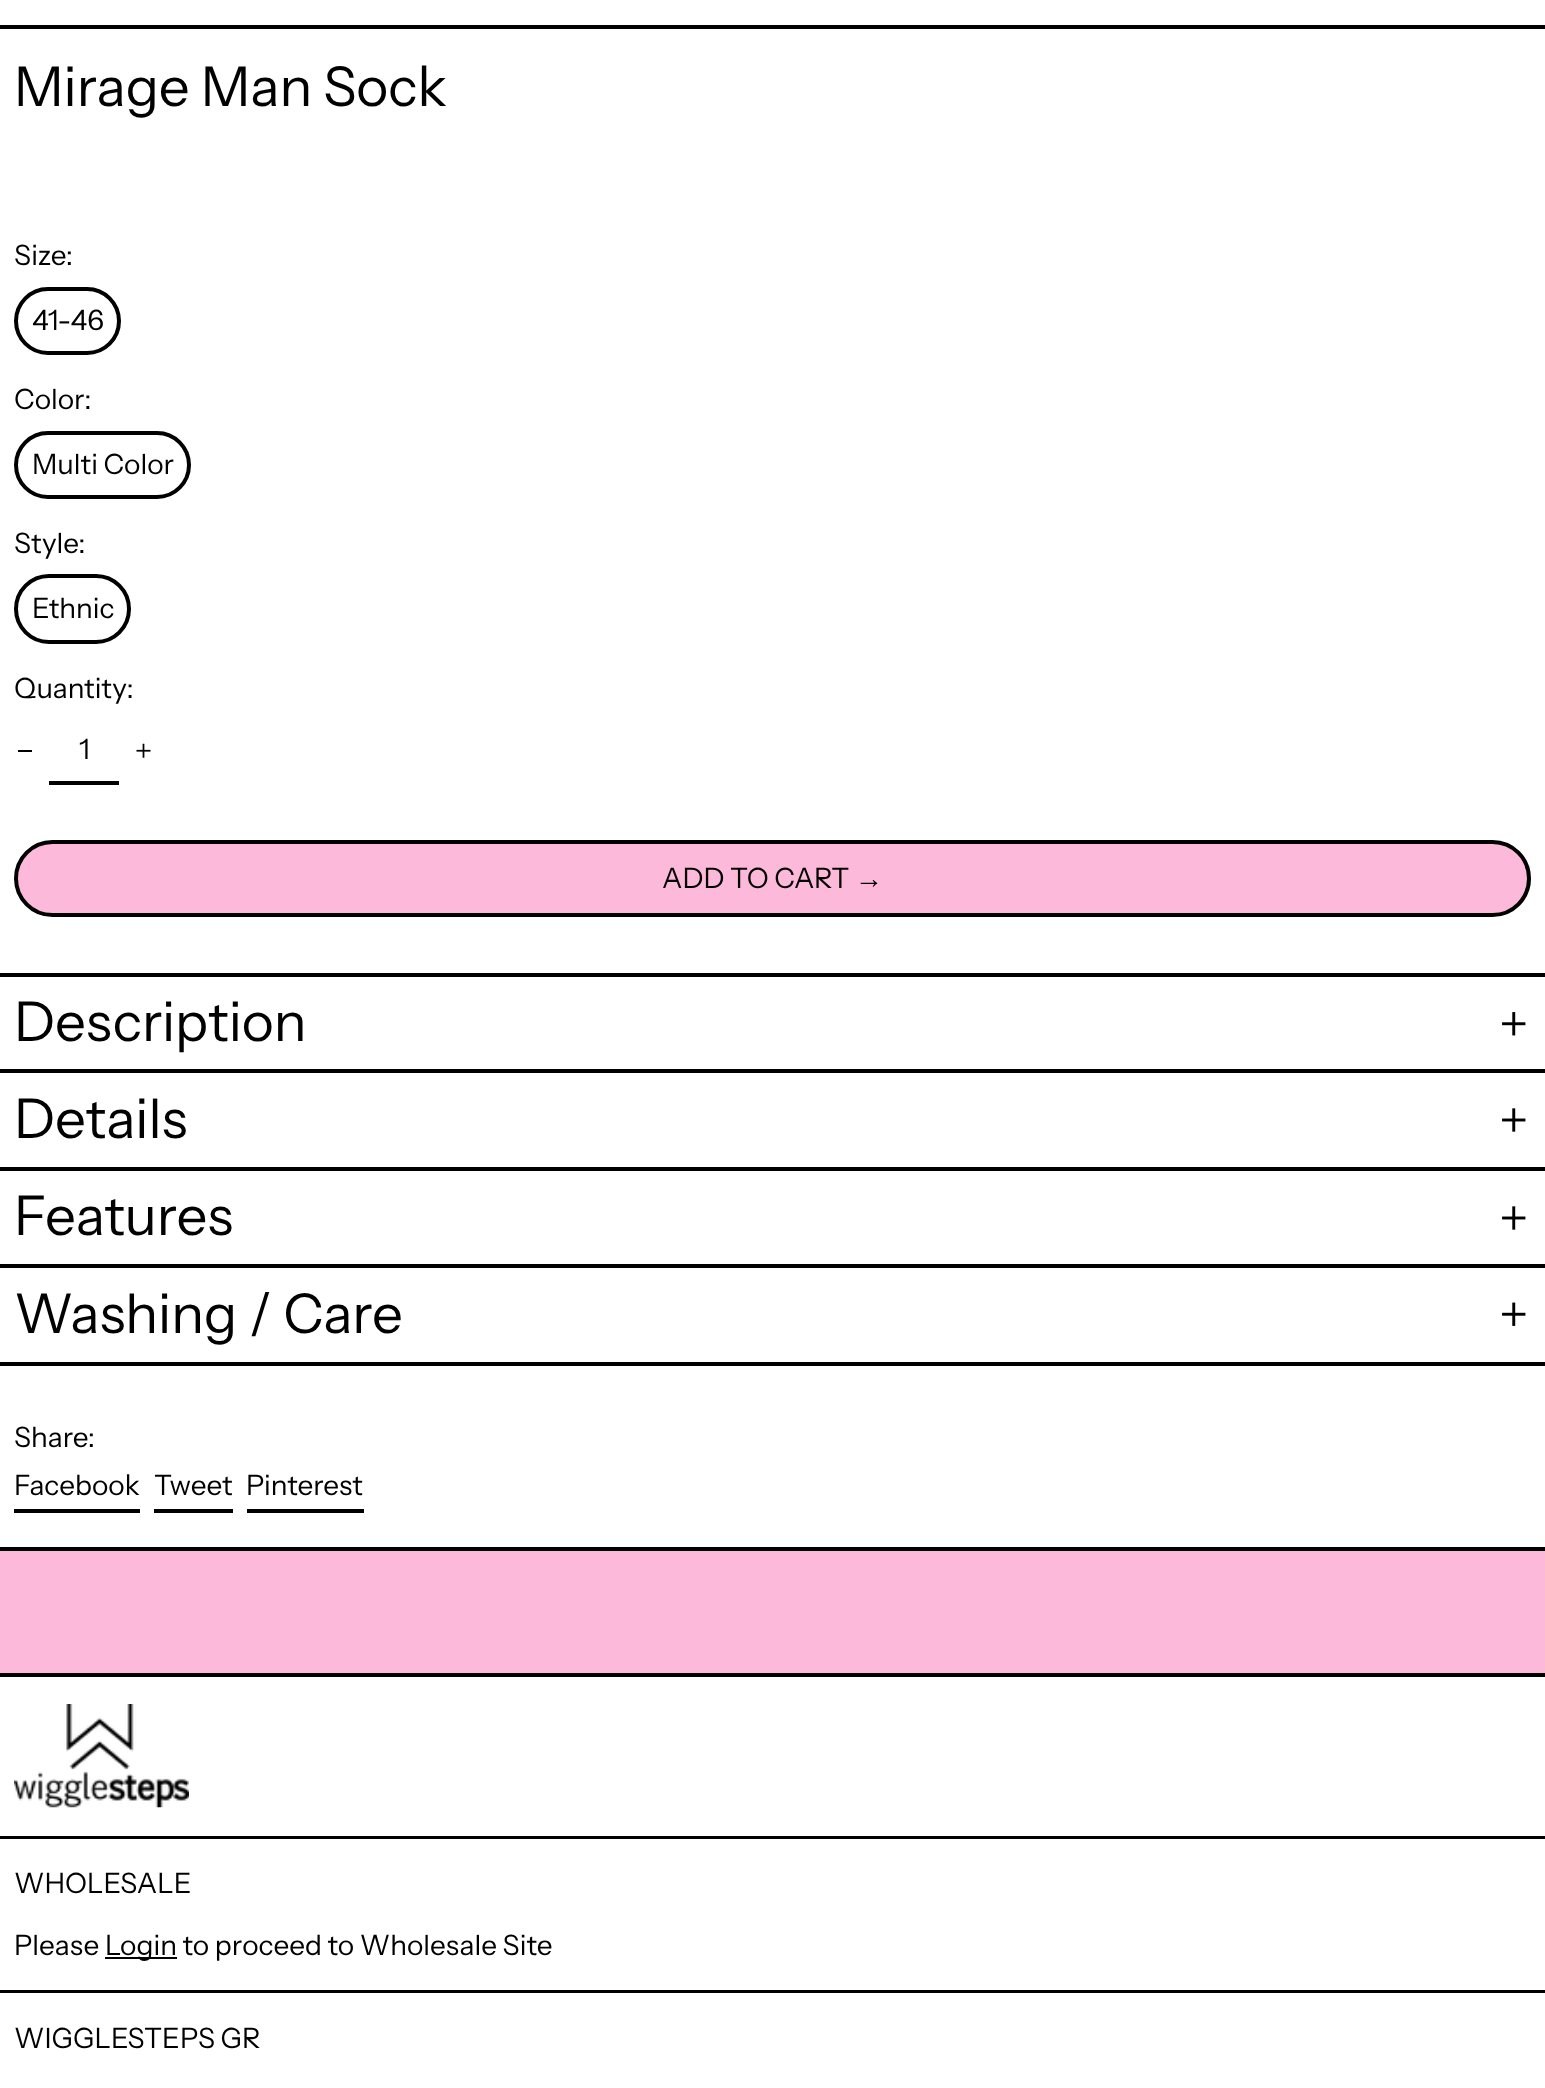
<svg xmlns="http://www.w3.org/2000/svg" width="1545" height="2088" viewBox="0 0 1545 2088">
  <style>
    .t1 { font: 54.75px Instrument Sans; fill: #000; }
    .t2 { font: 28px Instrument Sans; fill: #000; }
    .t3 { font: 28px Liberation Sans; fill: #000; }
  </style>
  <rect width="100%" height="100%" fill="#fff"/>
  <rect x="0" y="25" width="1545" height="4" fill="#000"/>
  <text x="14" y="106" class="t1">Mirage Man Sock</text>
  <text x="14" y="265" class="t2">Size:</text>
  <rect x="16" y="289" width="103" height="64" rx="32" fill="none" stroke="#000" stroke-width="4"/>
  <text x="32" y="330" class="t2">41-46</text>
  <text x="14" y="409" class="t2">Color:</text>
  <rect x="16" y="433" width="173" height="64" rx="32" fill="none" stroke="#000" stroke-width="4"/>
  <text x="32" y="474" class="t2">Multi Color</text>
  <text x="14" y="553" class="t2">Style:</text>
  <rect x="16" y="576" width="113" height="66" rx="33" fill="none" stroke="#000" stroke-width="4"/>
  <text x="32" y="618" class="t2">Ethnic</text>
  <text x="14" y="698" class="t2">Quantity:</text>
  <rect x="18" y="750" width="14" height="2" fill="#000"/>
  <rect x="49" y="781" width="70" height="4" fill="#000"/>
  <text x="79" y="759" class="t2">1</text>
  <image x="136" y="743" width="15" height="15" href="images/1.png"/>
  <rect x="16" y="842" width="1513" height="73" rx="36.5" fill="#fdb9da" stroke="#000" stroke-width="4"/>
  <text x="662" y="888" class="t2">ADD TO CART</text>
  <text x="855" y="888" class="t3">→</text>
  <rect x="0" y="973" width="1545" height="4" fill="#000"/>
  <text x="14" y="1041" class="t1">Description</text>
  <image x="1502" y="1012" width="24" height="24" href="images/2.png"/>
  <rect x="0" y="1069" width="1545" height="4" fill="#000"/>
  <text x="14" y="1138" class="t1">Details</text>
  <image x="1502" y="1108" width="24" height="24" href="images/3.png"/>
  <rect x="0" y="1167" width="1545" height="4" fill="#000"/>
  <text x="14" y="1235" class="t1">Features</text>
  <image x="1502" y="1206" width="24" height="24" href="images/3.png"/>
  <rect x="0" y="1264" width="1545" height="4" fill="#000"/>
  <rect x="0" y="1362" width="1545" height="4" fill="#000"/>
  <text x="14" y="1333" class="t1">Washing / Care</text>
  <image x="1502" y="1302" width="24" height="24" href="images/4.png"/>
  <text x="14" y="1447" class="t2">Share:</text>
  <rect x="14" y="1509" width="126" height="4" fill="#000"/>
  <text x="14" y="1495" class="t2">Facebook</text>
  <rect x="154" y="1509" width="79" height="4" fill="#000"/>
  <text x="154" y="1495" class="t2">Tweet</text>
  <rect x="247" y="1509" width="117" height="4" fill="#000"/>
  <text x="246" y="1495" class="t2">Pinterest</text>
  <rect x="0" y="1547" width="1545" height="4" fill="#000"/>
  <rect x="0" y="1551" width="1545" height="122" fill="#fdb9da"/>
  <rect x="0" y="1673" width="1545" height="4" fill="#000"/>
  <rect x="0" y="1836" width="1545" height="157" fill="#000"/>
  <image x="14" y="1704" width="175" height="104" href="images/5.png"/>
  <rect x="0" y="1839" width="1545" height="151" fill="#fff"/>
  <text x="14" y="1893" class="t2">WHOLESALE</text>
  <text x="14" y="1955" class="t2">Please</text>
  <rect x="105" y="1957" width="72" height="2" fill="#000"/>
  <text x="105" y="1955" class="t2">Login to proceed to Wholesale Site</text>
  <text x="14" y="2048" class="t2">WIGGLESTEPS GR</text>
</svg>
